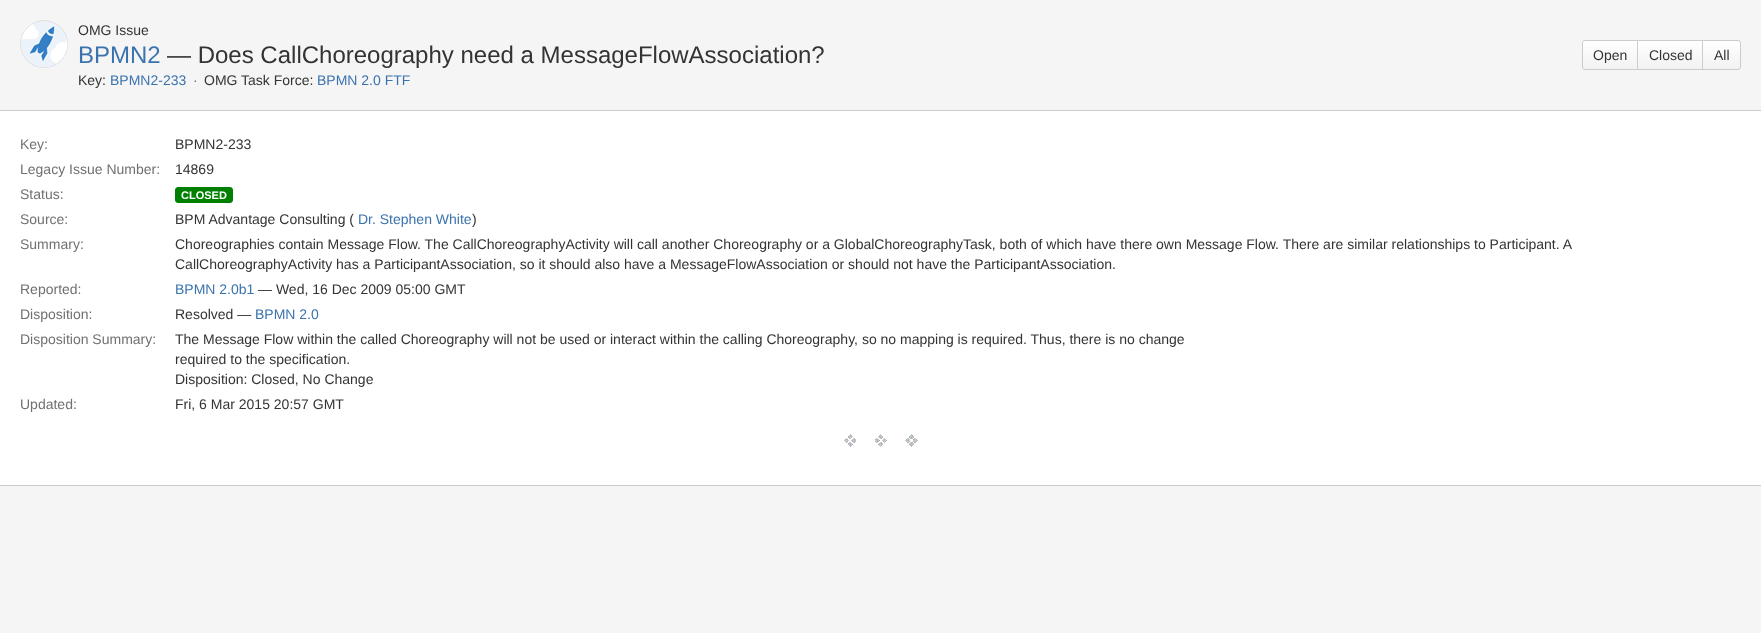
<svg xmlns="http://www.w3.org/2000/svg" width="1761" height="633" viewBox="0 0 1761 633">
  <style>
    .t1 { font: 14px Liberation Sans; fill: #333; }
    .t2 { font: 24px Liberation Sans; fill: #3b73af; }
    .t3 { font: 24px Liberation Sans; fill: #333; }
    .t4 { font: 14px Liberation Sans; fill: #3b73af; }
    .t5 { font: 14px Liberation Sans; fill: #707070; }
    .t6 { font: bold 11px Liberation Sans; fill: #fff; }
  </style>
  <defs>
    <clipPath id="clip1"><path d="M1585 40H1638V70H1585C1583.5 70 1582 68.5 1582 67V43C1582 41.5 1583.5 40 1585 40Z"/></clipPath>
    <linearGradient id="g1" gradientUnits="userSpaceOnUse" x1="1610" y1="41" x2="1610" y2="69"><stop offset="0" stop-color="#fff"/><stop offset="1" stop-color="#f2f2f2"/></linearGradient>
    <linearGradient id="g2" gradientUnits="userSpaceOnUse" x1="1670" y1="41" x2="1670" y2="69"><stop offset="0" stop-color="#fff"/><stop offset="1" stop-color="#f2f2f2"/></linearGradient>
    <linearGradient id="g3" gradientUnits="userSpaceOnUse" x1="1722" y1="41" x2="1722" y2="69"><stop offset="0" stop-color="#fff"/><stop offset="1" stop-color="#f2f2f2"/></linearGradient>
  </defs>
  <rect width="100%" height="100%" fill="#f5f5f5"/>
  <image x="20" y="20" width="48" height="48" href="images/1.png"/>
  <text x="78" y="35" class="t1">OMG Issue</text>
  <text x="78" y="63" class="t2">BPMN2</text>
  <text x="167" y="63" class="t3">— Does CallChoreography need a MessageFlowAssociation?</text>
  <text x="78" y="85" class="t1">Key:</text>
  <text x="110" y="85" class="t4">BPMN2-233</text>
  <text x="193" y="85" class="t5">·</text>
  <text x="204" y="85" class="t1">OMG Task Force:</text>
  <text x="317" y="85" class="t4">BPMN 2.0 FTF</text>
  <g clip-path="url(#clip1)">
    <rect x="1582" y="41" width="55" height="28" fill="url(#g1)"/>
  </g>
  <path d="M1585 40.5H1637.5V69.5H1585C1583.5 69.5 1582.5 68.5 1582.5 67V43C1582.5 41.5 1583.5 40.5 1585 40.5Z" fill="none" stroke="#ccc"/>
  <text x="1593" y="60" class="t1">Open</text>
  <rect x="1638" y="41" width="64" height="28" fill="url(#g2)"/>
  <rect x="1638" y="40" width="65" height="1" fill="#ccc"/>
  <rect x="1702" y="40" width="1" height="30" fill="#ccc"/>
  <rect x="1638" y="69" width="65" height="1" fill="#ccc"/>
  <text x="1649" y="60" class="t1">Closed</text>
  <path d="M1703 41H1738C1739 41 1740 42 1740 43V67C1740 68 1739 69 1738 69H1703Z" fill="url(#g3)"/>
  <path d="M1703 40H1738C1739.5 40 1741 41.5 1741 43V67C1741 68.5 1739.5 70 1738 70H1703ZM1703 41H1738C1739 41 1740 42 1740 43V67C1740 68 1739 69 1738 69H1703Z" fill="#ccc" fill-rule="evenodd"/>
  <text x="1714" y="60" class="t1">All</text>
  <rect x="0" y="111" width="1761" height="374" fill="#fff"/>
  <rect x="0" y="110" width="1761" height="1" fill="#ccc"/>
  <rect x="0" y="485" width="1761" height="1" fill="#ccc"/>
  <text x="20" y="149" class="t5">Key:</text>
  <text x="175" y="149" class="t1">BPMN2-233</text>
  <text x="20" y="174" class="t5">Legacy Issue Number:</text>
  <text x="175" y="174" class="t1">14869</text>
  <text x="20" y="199" class="t5">Status:</text>
  <rect x="175.5" y="187.5" width="57" height="15" rx="2.5" fill="#008000" stroke="#008000"/>
  <text x="181" y="199" class="t6">CLOSED</text>
  <text x="20" y="224" class="t5">Source:</text>
  <text x="175" y="224" class="t1">BPM Advantage Consulting (</text>
  <text x="358" y="224" class="t4">Dr. Stephen White</text>
  <text x="472" y="224" class="t1">)</text>
  <text x="20" y="249" class="t5">Summary:</text>
  <text x="175" y="249" class="t1">Choreographies contain Message Flow. The CallChoreographyActivity will call another Choreography or a GlobalChoreographyTask, both of which have there own Message Flow. There are similar relationships to Participant. A</text>
  <text x="175" y="269" class="t1">CallChoreographyActivity has a ParticipantAssociation, so it should also have a MessageFlowAssociation or should not have the ParticipantAssociation.</text>
  <text x="20" y="294" class="t5">Reported:</text>
  <text x="175" y="294" class="t4">BPMN 2.0b1</text>
  <text x="258" y="294" class="t1">— Wed, 16 Dec 2009 05:00 GMT</text>
  <text x="20" y="319" class="t5">Disposition:</text>
  <text x="175" y="319" class="t1">Resolved —</text>
  <text x="255" y="319" class="t4">BPMN 2.0</text>
  <text x="20" y="344" class="t5">Disposition Summary:</text>
  <text x="175" y="344" class="t1">The Message Flow within the called Choreography will not be used or interact within the calling Choreography, so no mapping is required. Thus, there is no change</text>
  <text x="175" y="364" class="t1">required to the specification.</text>
  <text x="175" y="384" class="t1">Disposition: Closed, No Change</text>
  <text x="20" y="409" class="t5">Updated:</text>
  <text x="175" y="409" class="t1">Fri, 6 Mar 2015 20:57 GMT</text>
  <image x="844" y="434" width="74" height="13" href="images/2.png"/>
</svg>
